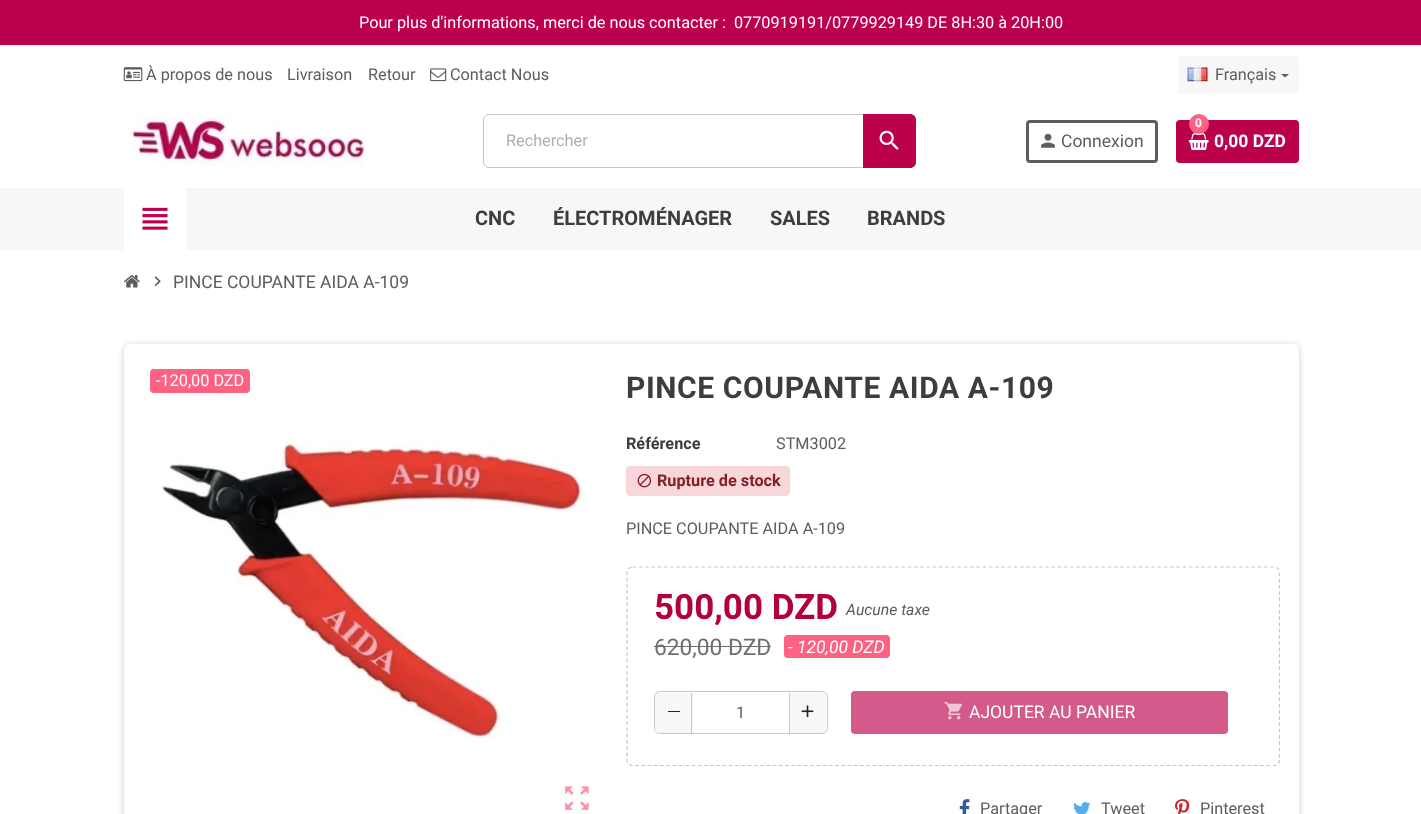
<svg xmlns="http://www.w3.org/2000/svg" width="1421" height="814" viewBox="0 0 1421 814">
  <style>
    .t1 { font: 16.25px Roboto; fill: #fff; }
    .t2 { font: 16.25px Roboto; fill: #5d5d5d; }
    .t3 { font: 16.25px Roboto; fill: #aeaeae; }
    .t4 { font: 17.5px Roboto; fill: #5d5d5d; }
    .t5 { font: bold 12px Roboto; fill: #fff; }
    .t6 { font: bold 17.5px Roboto; fill: #fff; }
    .t7 { font: bold 20px 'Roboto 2'; fill: #3d3d3d; }
    .t8 { font: bold 30px 'Roboto 2'; letter-spacing: 0.6px; fill: #3d3d3d; }
    .t9 { font: bold 16.25px Roboto; fill: #3d3d3d; }
    .t10 { font: bold 16.25px Roboto; fill: #842029; }
    .t11 { font: bold 35px Roboto; fill: #b3003a; }
    .t12 { font: italic 15.75px Roboto; fill: #5d5d5d; }
    .t13 { font: 22.75px Roboto; fill: #6f6f6f; }
    .t14 { font: italic 17.5px Roboto; fill: #fff; }
    .t15 { font: 17.5px Roboto; fill: #fff; }
  </style>
  <rect width="100%" height="100%" fill="#fff"/>
  <rect x="0" y="0" width="1421" height="45" fill="#bb014d"/>
  <text x="359" y="28" class="t1" xml:space="preserve">Pour plus d'informations, merci de nous contacter :  0770919191/0779929149 DE 8H:30 à 20H:00</text>
  <image x="123" y="67" width="20" height="15" href="images/1.png"/>
  <text x="146" y="80" class="t2">À propos de nous</text>
  <text x="287" y="80" class="t2">Livraison</text>
  <text x="368" y="80" class="t2">Retour</text>
  <image x="430" y="68" width="17" height="14" href="images/2.png"/>
  <text x="450" y="80" class="t2">Contact Nous</text>
  <rect x="1178" y="56" width="121" height="38" rx="4" fill="#f7f7f7"/>
  <image x="1187" y="67" width="21" height="15" href="images/3.png"/>
  <text x="1215" y="80" class="t2">Français</text>
  <path d="M1281 74H1289L1285 77.5Z" fill="#5d5d5d"/>
  <image x="132" y="116" width="233" height="50" href="images/4.png"/>
  <rect x="483.5" y="114.5" width="431" height="53" rx="5.5" fill="none" stroke="#c7c7c7"/>
  <text x="506" y="146" class="t3">Rechercher</text>
  <path d="M863 114H910C913.5 114 916 116.5 916 120V162C916 165.5 913.5 168 910 168H863Z" fill="#bc014b"/>
  <image x="879" y="130" width="20" height="20" href="images/5.png"/>
  <rect x="1027.5" y="121.5" width="129" height="40" rx="2.5" fill="none" stroke="#5d5d5d" stroke-width="3"/>
  <image x="1041" y="133" width="14" height="15" href="images/6.png"/>
  <text x="1061" y="147" class="t4">Connexion</text>
  <rect x="1176" y="120" width="123" height="43" rx="4" fill="#bc014b"/>
  <image x="1188" y="133" width="21" height="17" href="images/7.png"/>
  <circle cx="1199" cy="124" r="10" fill="#fd6282"/>
  <text x="1195" y="127" class="t5">0</text>
  <text x="1214" y="147" class="t6">0,00 DZD</text>
  <rect x="0" y="188" width="1421" height="62" fill="#f7f7f7"/>
  <rect x="124" y="188" width="62" height="62" fill="#fff"/>
  <image x="142" y="207" width="26" height="23" href="images/8.png"/>
  <text x="475" y="225" class="t7">CNC</text>
  <text x="553" y="225" class="t7">ÉLECTROMÉNAGER</text>
  <text x="770" y="225" class="t7">SALES</text>
  <text x="867" y="225" class="t7">BRANDS</text>
  <image x="124" y="275" width="16" height="13" href="images/9.png"/>
  <image x="154" y="276" width="7" height="11" href="images/10.png"/>
  <text x="173" y="288" class="t4">PINCE COUPANTE AIDA A-109</text>
  <rect x="124" y="345" width="1175" height="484" rx="6" fill="#00000033" filter="blur(3px)"/>
  <rect x="124" y="344" width="1175" height="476" rx="6" fill="#fff"/>
  <rect x="150" y="369" width="100" height="24" rx="4" fill="#fd6282"/>
  <text x="156" y="386" class="t1">-120,00 DZD</text>
  <image x="161" y="442" width="422" height="297" href="images/11.png"/>
  <image x="565" y="786" width="24" height="24" href="images/12.png"/>
  <text x="626" y="398" class="t8">PINCE COUPANTE AIDA A-109</text>
  <text x="626" y="449" class="t9">Référence</text>
  <text x="776" y="449" class="t2">STM3002</text>
  <rect x="626" y="466" width="164" height="30" rx="4" fill="#f8d7da"/>
  <image x="637" y="473" width="15" height="15" href="images/13.png"/>
  <text x="657" y="486" class="t10">Rupture de stock</text>
  <text x="626" y="534" class="t2">PINCE COUPANTE AIDA A-109</text>
  <path d="M632.5 567H1274C1277 567 1279.5 569.5 1279.5 572.5V760C1279.5 763 1277 765.5 1274 765.5H632.5C629.5 765.5 627 763 627 760V572.5C627 569.5 629.5 567 632.5 567Z" fill="none" stroke="#c7c7c7" stroke-width="1.2" stroke-dasharray="3.75 2.5"/>
  <text x="654" y="619" class="t11">500,00 DZD</text>
  <text x="846" y="615" class="t12">Aucune taxe</text>
  <text x="654" y="655" class="t13">620,00 DZD</text>
  <rect x="654" y="646" width="117" height="1" fill="#6f6f6f"/>
  <rect x="784" y="635" width="106" height="23" rx="4" fill="#fd6282"/>
  <text x="788" y="653" class="t14">- 120,00 DZD</text>
  <rect x="654.5" y="691.5" width="173" height="42" rx="5.5" fill="none" stroke="#c7c7c7"/>
  <path d="M660 693H693V733H660C657 733 655 731 655 728V698C655 695 657 693 660 693Z" fill="#f7f7f7"/>
  <rect x="668" y="711" width="12" height="1" fill="#212529"/>
  <path d="M789 693H821C824 693 826 695 826 698V728C826 731 824 733 821 733H789Z" fill="#f7f7f7"/>
  <rect x="789" y="693" width="1" height="40" fill="#c7c7c7"/>
  <rect x="691" y="693" width="1" height="40" fill="#c7c7c7"/>
  <text x="736" y="718" class="t2">1</text>
  <image x="801" y="705" width="13" height="13" href="images/14.png"/>
  <rect x="851" y="691" width="377" height="43" rx="4" fill="#d35a8a"/>
  <image x="944" y="702" width="19" height="18" href="images/15.png"/>
  <text x="969" y="718" class="t15">AJOUTER AU PANIER</text>
  <image x="959" y="799" width="11" height="15" href="images/16.png"/>
  <text x="980" y="814" class="t2">Partager</text>
  <image x="1073" y="802" width="18" height="12" href="images/17.png"/>
  <text x="1101" y="814" class="t2">Tweet</text>
  <image x="1175" y="799" width="15" height="15" href="images/18.png"/>
  <text x="1200" y="814" class="t2">Pinterest</text>
</svg>
